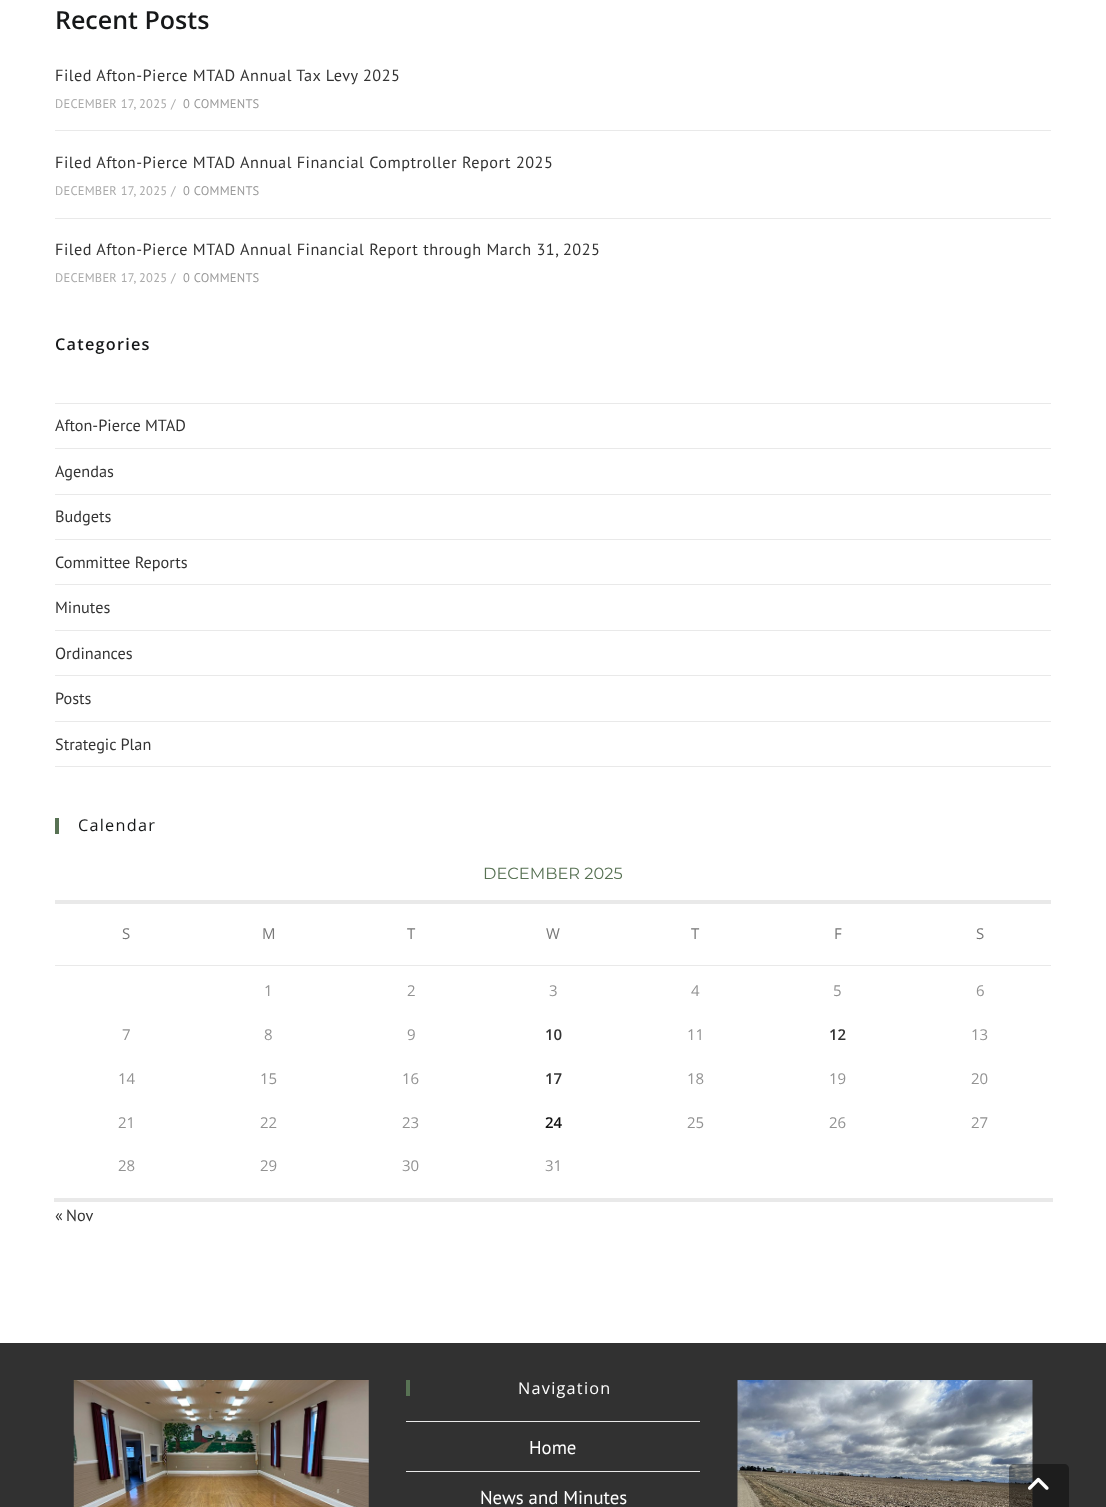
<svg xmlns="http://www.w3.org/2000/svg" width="1106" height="1507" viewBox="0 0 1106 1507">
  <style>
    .t1 { font: 600 25px Open Sans; fill: #161819; }
    .t2 { font: 16.25px PT Sans; letter-spacing: 0.5px; fill: #333; }
    .t3 { font: 12.5px PT Sans; letter-spacing: 0.25px; fill: #aaa; }
    .t4 { font: 12.5px PT Sans; letter-spacing: 0.25px; fill: #999; }
    .t5 { font: 600 16.25px Open Sans; letter-spacing: 1.25px; fill: #161819; }
    .t6 { font: 16.25px PT Sans; fill: #333; }
    .t7 { font: 16.25px Open Sans; letter-spacing: 1.25px; fill: #161819; }
    .t8 { font: 16.25px Montserrat; fill: #587254; }
    .t9 { font: 15px Open Sans; fill: #777; }
    .t10 { font: 15px Open Sans; fill: #929292; }
    .t11 { font: 600 15px Open Sans; fill: #333; }
    .t12 { font: 600 15px Open Sans; fill: #111; }
    .t13 { font: 16.25px Open Sans; letter-spacing: 1.25px; fill: #fff; }
    .t14 { font: 18.75px PT Sans; fill: #fff; }
  </style>
  <rect width="100%" height="100%" fill="#fff"/>
  <text x="55" y="29" class="t1">Recent Posts</text>
  <text x="55" y="81" class="t2">Filed Afton-Pierce MTAD Annual Tax Levy 2025</text>
  <text x="55" y="108" class="t3">DECEMBER 17, 2025 /</text>
  <text x="183" y="108" class="t4">0 COMMENTS</text>
  <rect x="55" y="130" width="996" height="1" fill="#e9e9e9"/>
  <text x="55" y="168" class="t2">Filed Afton-Pierce MTAD Annual Financial Comptroller Report 2025</text>
  <text x="55" y="195" class="t3">DECEMBER 17, 2025 /</text>
  <text x="183" y="195" class="t4">0 COMMENTS</text>
  <rect x="55" y="218" width="996" height="1" fill="#e9e9e9"/>
  <text x="55" y="255" class="t2">Filed Afton-Pierce MTAD Annual Financial Report through March 31, 2025</text>
  <text x="55" y="282" class="t3">DECEMBER 17, 2025 /</text>
  <text x="183" y="282" class="t4">0 COMMENTS</text>
  <text x="55" y="350" class="t5">Categories</text>
  <rect x="55" y="403" width="996" height="1" fill="#e9e9e9"/>
  <rect x="55" y="448" width="996" height="1" fill="#e9e9e9"/>
  <text x="55" y="431" class="t6">Afton-Pierce MTAD</text>
  <rect x="55" y="494" width="996" height="1" fill="#e9e9e9"/>
  <text x="55" y="477" class="t6">Agendas</text>
  <rect x="55" y="539" width="996" height="1" fill="#e9e9e9"/>
  <text x="55" y="522" class="t6">Budgets</text>
  <rect x="55" y="584" width="996" height="1" fill="#e9e9e9"/>
  <text x="55" y="568" class="t6">Committee Reports</text>
  <rect x="55" y="630" width="996" height="1" fill="#e9e9e9"/>
  <text x="55" y="613" class="t6">Minutes</text>
  <rect x="55" y="675" width="996" height="1" fill="#e9e9e9"/>
  <text x="55" y="659" class="t6">Ordinances</text>
  <rect x="55" y="721" width="996" height="1" fill="#e9e9e9"/>
  <text x="55" y="704" class="t6">Posts</text>
  <rect x="55" y="766" width="996" height="1" fill="#e9e9e9"/>
  <text x="55" y="750" class="t6">Strategic Plan</text>
  <rect x="55" y="818" width="4" height="16" fill="#587254"/>
  <text x="78" y="831" class="t7">Calendar</text>
  <rect x="55" y="900" width="996" height="4" fill="#e9e9e9"/>
  <text x="483" y="879" class="t8">DECEMBER 2025</text>
  <text x="122" y="939" class="t9">S</text>
  <text x="262" y="939" class="t9">M</text>
  <text x="407" y="939" class="t9">T</text>
  <text x="546" y="939" class="t9">W</text>
  <text x="691" y="939" class="t9">T</text>
  <text x="834" y="939" class="t9">F</text>
  <rect x="55" y="965" width="996" height="1" fill="#e9e9e9"/>
  <text x="976" y="939" class="t9">S</text>
  <rect x="54" y="1198" width="999" height="4" fill="#e9e9e9"/>
  <text x="264" y="996" class="t10">1</text>
  <text x="407" y="996" class="t10">2</text>
  <text x="549" y="996" class="t10">3</text>
  <text x="691" y="996" class="t10">4</text>
  <text x="833" y="996" class="t10">5</text>
  <text x="976" y="996" class="t10">6</text>
  <text x="122" y="1040" class="t10">7</text>
  <text x="264" y="1040" class="t10">8</text>
  <text x="407" y="1040" class="t10">9</text>
  <text x="545" y="1040" class="t11">10</text>
  <text x="687" y="1040" class="t10">11</text>
  <text x="829" y="1040" class="t11">12</text>
  <text x="971" y="1040" class="t10">13</text>
  <text x="118" y="1084" class="t10">14</text>
  <text x="260" y="1084" class="t10">15</text>
  <text x="402" y="1084" class="t10">16</text>
  <text x="545" y="1084" class="t11">17</text>
  <text x="687" y="1084" class="t10">18</text>
  <text x="829" y="1084" class="t10">19</text>
  <text x="971" y="1084" class="t10">20</text>
  <text x="118" y="1128" class="t10">21</text>
  <text x="260" y="1128" class="t10">22</text>
  <text x="402" y="1128" class="t10">23</text>
  <text x="545" y="1128" class="t12">24</text>
  <text x="687" y="1128" class="t10">25</text>
  <text x="829" y="1128" class="t10">26</text>
  <text x="971" y="1128" class="t10">27</text>
  <text x="118" y="1171" class="t10">28</text>
  <text x="260" y="1171" class="t10">29</text>
  <text x="402" y="1171" class="t10">30</text>
  <text x="545" y="1171" class="t10">31</text>
  <text x="55" y="1221" word-spacing="-1" class="t6">« Nov</text>
  <rect x="0" y="1343" width="1106" height="164" fill="#313131"/>
  <image x="73" y="1380" width="296" height="127" href="images/1.png"/>
  <rect x="406" y="1380" width="4" height="16" fill="#587254"/>
  <text x="518" y="1394" class="t13">Navigation</text>
  <rect x="406" y="1421" width="294" height="1" fill="#e9e9e9"/>
  <rect x="406" y="1471" width="294" height="1" fill="#e9e9e9"/>
  <text x="529" y="1454" class="t14">Home</text>
  <text x="480" y="1504" class="t14">News and Minutes</text>
  <image x="737" y="1380" width="296" height="127" href="images/2.png"/>
  <path d="M1014 1464H1064C1067 1464 1069 1466 1069 1469V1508H1009V1469C1009 1466 1011 1464 1014 1464Z" fill="#00000066"/>
  <image x="1028" y="1477" width="21" height="13" href="images/3.png"/>
</svg>
